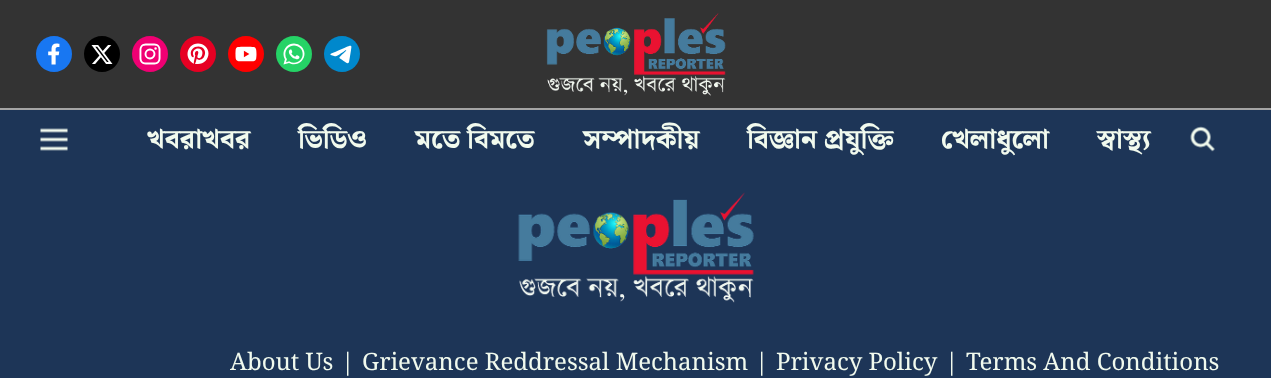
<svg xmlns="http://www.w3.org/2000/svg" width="1271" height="378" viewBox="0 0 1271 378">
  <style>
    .t1 { font: 800 27px Noto Serif Bengali; fill: #f1faee; }
    .t2 { font: 24px Noto Serif Bengali; fill: #f1faee; }
  </style>
  <rect width="100%" height="100%" fill="#1d3557"/>
  <rect x="0" y="0" width="1271" height="108" fill="#333"/>
  <rect x="0" y="108" width="1271" height="2" fill="#a4a4a4"/>
  <image x="36" y="36" width="36" height="36" href="images/1.png"/>
  <image x="84" y="36" width="36" height="36" href="images/2.png"/>
  <image x="132" y="36" width="36" height="36" href="images/3.png"/>
  <image x="180" y="36" width="36" height="36" href="images/4.png"/>
  <image x="228" y="36" width="36" height="36" href="images/5.png"/>
  <image x="276" y="36" width="36" height="36" href="images/6.png"/>
  <image x="324" y="36" width="36" height="36" href="images/7.png"/>
  <image x="546" y="13" width="180" height="83" href="images/8.png"/>
  <image x="40" y="128" width="28" height="23" href="images/9.png"/>
  <text x="147" y="148" class="t1">খবরাখবর</text>
  <text x="298" y="148" class="t1">ভিডিও</text>
  <text x="415" y="148" class="t1">মতে বিমতে</text>
  <text x="583" y="148" class="t1">সম্পাদকীয়</text>
  <text x="747" y="148" class="t1">বিজ্ঞান প্রযুক্তি</text>
  <text x="941" y="148" class="t1">খেলাধুলো</text>
  <text x="1097" y="148" class="t1">স্বাস্থ্য</text>
  <image x="1190" y="126" width="25" height="26" href="images/10.png"/>
  <image x="518" y="192" width="236" height="111" href="images/11.png"/>
  <text x="230" y="370" class="t2">About Us</text>
  <text x="341" y="370" class="t2">|</text>
  <text x="362" y="370" class="t2">Grievance Reddressal Mechanism</text>
  <text x="755" y="370" class="t2">|</text>
  <text x="776" y="370" class="t2">Privacy Policy</text>
  <text x="945" y="370" class="t2">|</text>
  <text x="966" y="370" class="t2">Terms And Conditions</text>
</svg>
